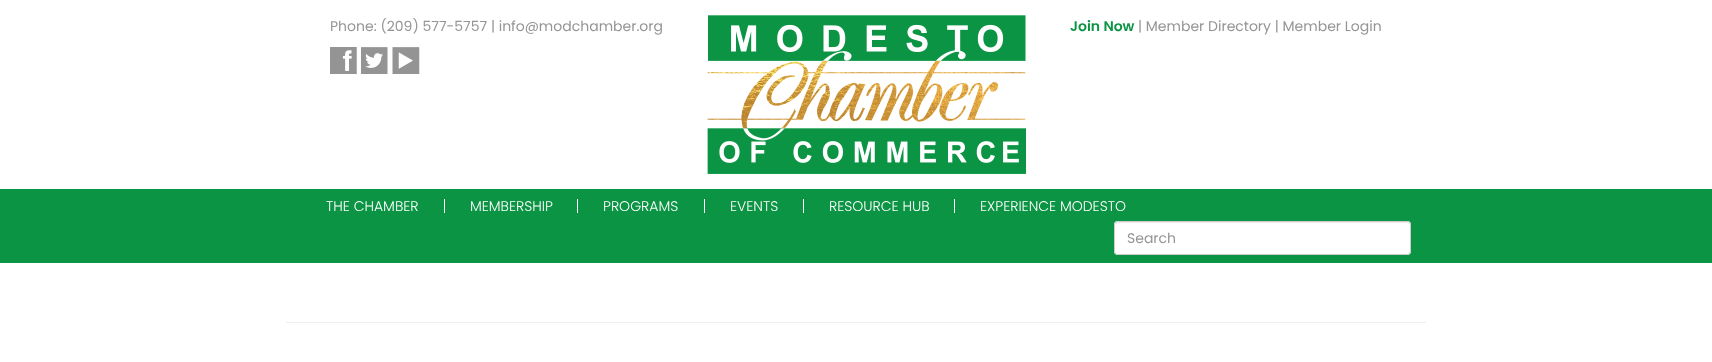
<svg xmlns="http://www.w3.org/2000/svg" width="1712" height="362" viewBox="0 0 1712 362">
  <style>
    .t1 { font: 14px Poppins; fill: #959595; }
    .t2 { font: 600 14px Poppins; fill: #0b9444; }
    .t3 { font: 300 14px Poppins; fill: #fff; }
  </style>
  <rect width="100%" height="100%" fill="#fff"/>
  <text x="330" y="31" class="t1">Phone: (209) 577-5757 | info@modchamber.org</text>
  <image x="330" y="47" width="27" height="27" href="images/1.png"/>
  <image x="361" y="47" width="27" height="27" href="images/2.png"/>
  <image x="392" y="47" width="28" height="27" href="images/3.png"/>
  <image x="707" y="15" width="319" height="159" href="images/4.png"/>
  <text x="1070" y="31" class="t2">Join Now</text>
  <text x="1138" y="31" class="t1">| Member Directory | Member Login</text>
  <rect x="0" y="189" width="1712" height="74" fill="#0b9444"/>
  <text x="326" y="211" class="t3">THE CHAMBER</text>
  <rect x="444" y="199" width="1" height="14" fill="#fff"/>
  <text x="470" y="211" class="t3">MEMBERSHIP</text>
  <rect x="577" y="199" width="1" height="14" fill="#fff"/>
  <text x="603" y="211" class="t3">PROGRAMS</text>
  <rect x="704" y="199" width="1" height="14" fill="#fff"/>
  <text x="730" y="211" class="t3">EVENTS</text>
  <rect x="803" y="199" width="1" height="14" fill="#fff"/>
  <text x="829" y="211" class="t3">RESOURCE HUB</text>
  <rect x="954" y="199" width="1" height="14" fill="#fff"/>
  <text x="980" y="211" class="t3">EXPERIENCE MODESTO</text>
  <rect x="1114" y="221" width="297" height="34" rx="4" fill="#fff"/>
  <path d="M1118 223H1407C1409 223 1410 224 1410 226L1409 223L1408 222H1118C1116 222 1115 224 1115 226C1115 224 1116 223 1118 223Z" fill="#ececec"/>
  <rect x="1114.5" y="221.5" width="296" height="33" rx="3.5" fill="none" stroke="#ccc"/>
  <text x="1127" y="243" class="t1">Search</text>
  <rect x="286" y="322" width="1140" height="1" fill="#eee"/>
</svg>
